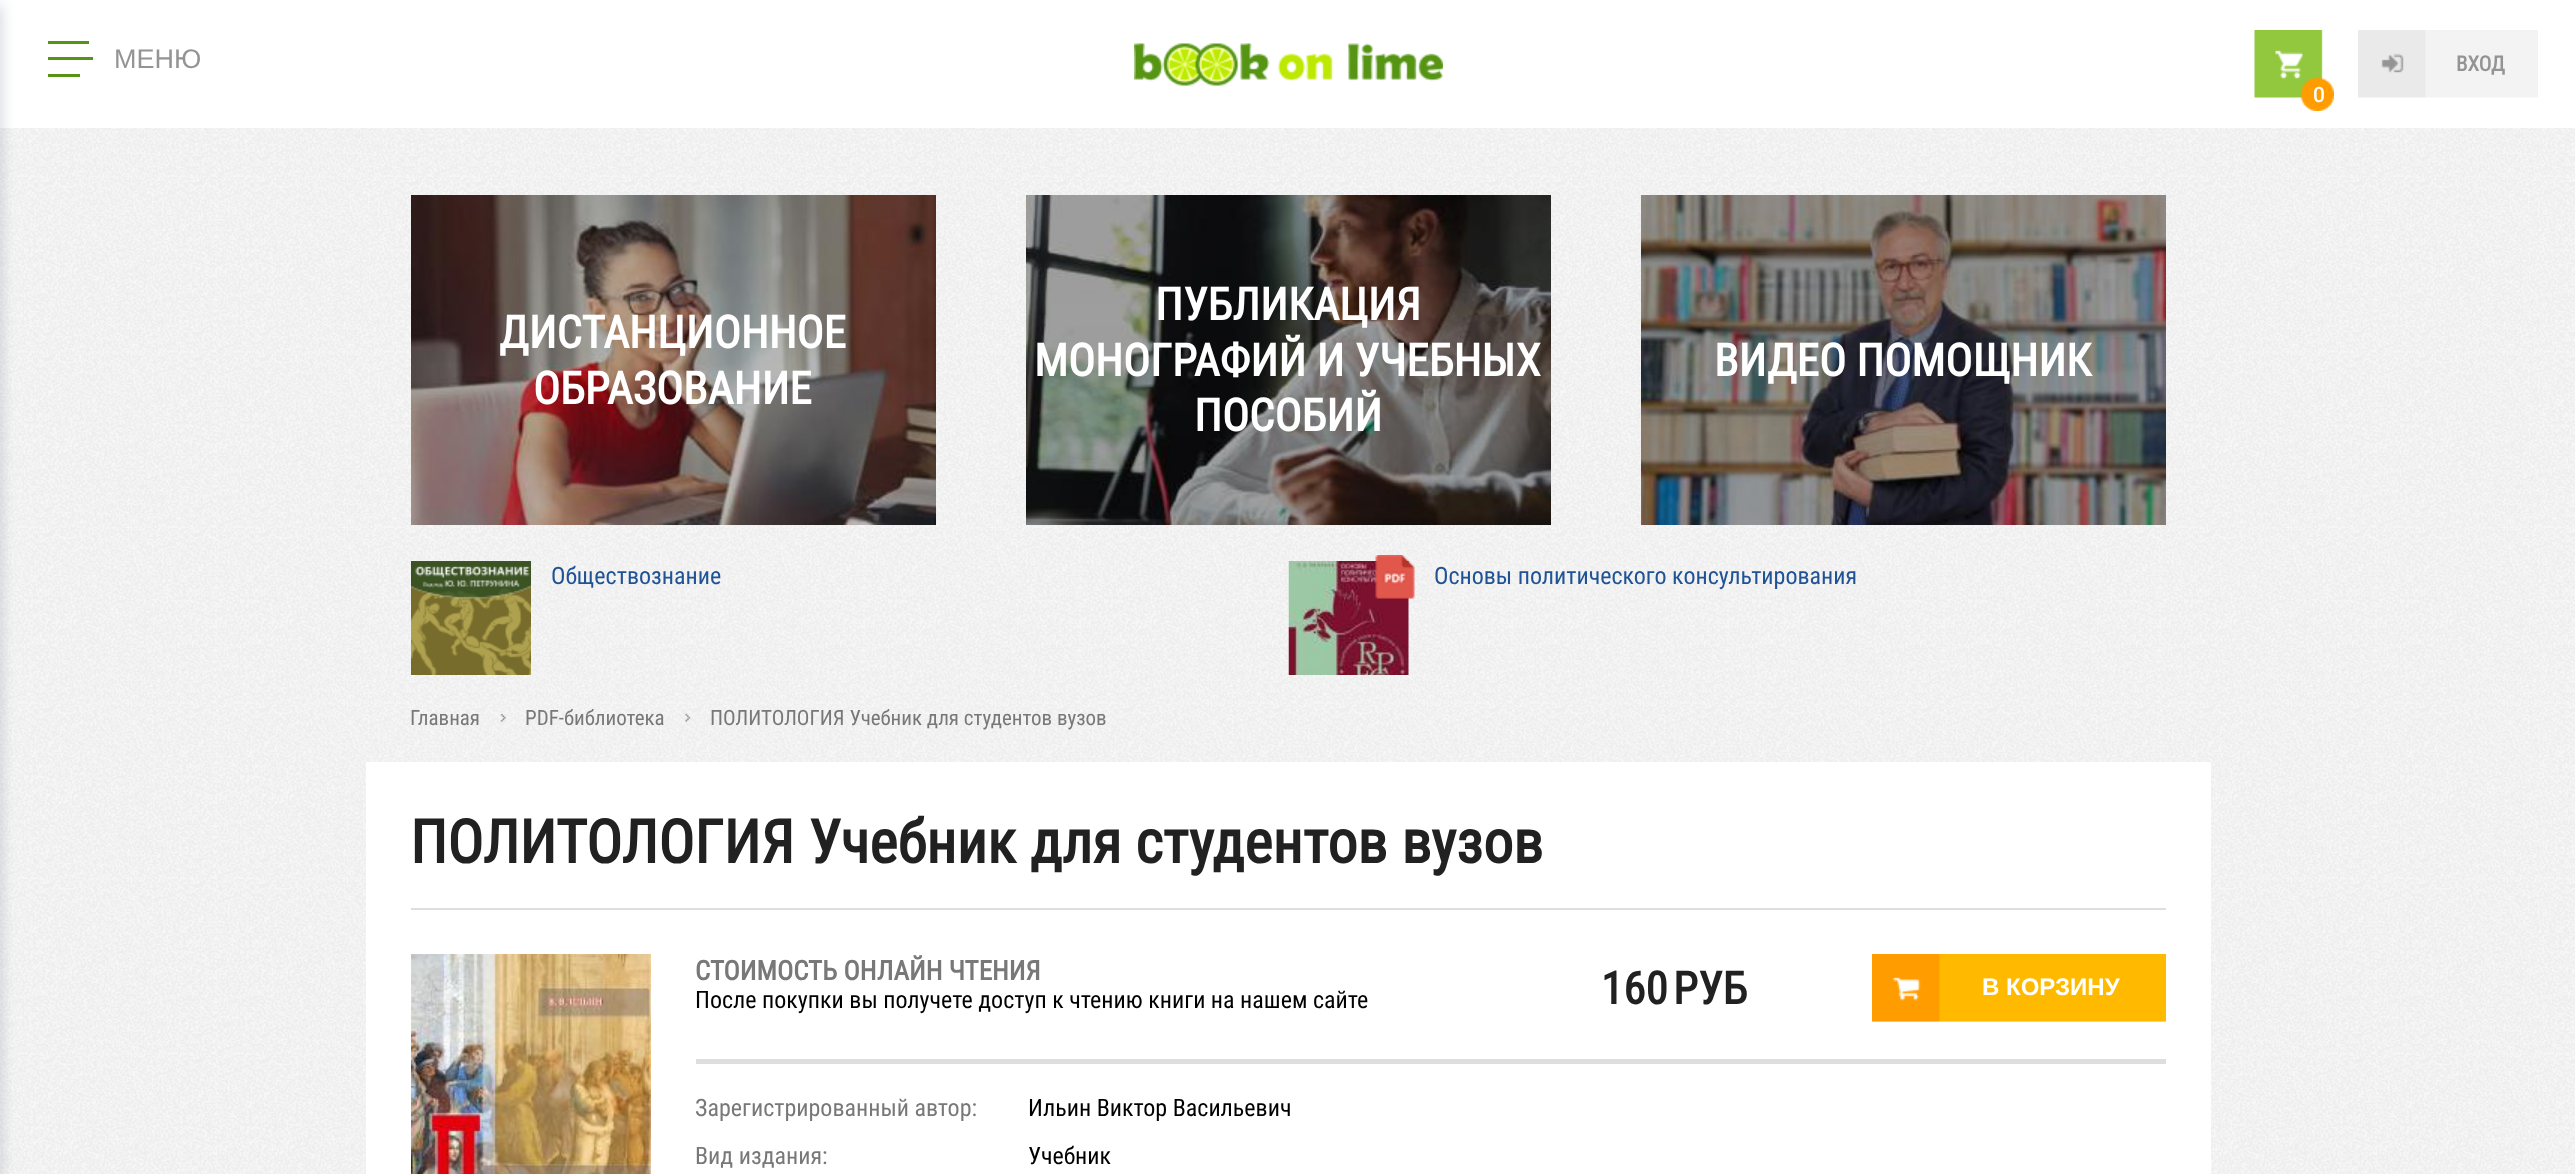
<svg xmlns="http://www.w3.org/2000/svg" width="2575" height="1174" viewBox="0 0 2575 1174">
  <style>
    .t1 { font: 27px Liberation Sans; fill: #949494; }
    .t2 { font: bold 21px Roboto Condensed; fill: #949494; }
    .t3 { font: 500 21px Roboto; fill: #fff; }
    .t4 { font: bold 45px Roboto Condensed; fill: #fff; }
    .t5 { font: 24px Roboto Condensed; fill: #205395; }
    .t6 { font: 21px Roboto Condensed; fill: #787878; }
    .t7 { font: bold 60px Roboto Condensed; fill: #212121; }
    .t8 { font: bold 27px Roboto Condensed; fill: #787878; }
    .t9 { font: 24px Roboto Condensed; fill: #000; }
    .t10 { font: bold 45px Roboto Condensed; fill: #212121; }
    .t11 { font: bold 24px Liberation Sans; fill: #fff; }
    .t12 { font: 24px Roboto Condensed; fill: #787878; }
  </style>
  <rect width="100%" height="100%" fill="#fff"/>
  <image x="0" y="128" width="2575" height="1046" href="images/1.png"/>
  <rect x="-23" y="5" width="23" height="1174" fill="#545f794d" filter="blur(7.5px)"/>
  <rect x="48" y="41" width="41" height="3" fill="#569414"/>
  <rect x="48" y="57" width="45" height="3" fill="#569414"/>
  <rect x="48" y="74" width="32" height="3" fill="#569414"/>
  <text x="114" y="68" class="t1">МЕНЮ</text>
  <image x="1134" y="43" width="309" height="43" href="images/2.png"/>
  <image x="2358" y="30" width="180" height="68" href="images/3.png"/>
  <text x="2456" y="71" class="t2">ВХОД</text>
  <image x="2254" y="30" width="80" height="81" href="images/4.png"/>
  <text x="2313" y="102" class="t3">0</text>
  <image x="411" y="195" width="525" height="330" href="images/5.png"/>
  <text x="499" y="348" class="t4">ДИСТАНЦИОННОЕ</text>
  <text x="533" y="404" class="t4">ОБРАЗОВАНИЕ</text>
  <image x="1026" y="195" width="525" height="330" href="images/6.png"/>
  <text x="1155" y="320" class="t4">ПУБЛИКАЦИЯ</text>
  <text x="1034" y="376" class="t4">МОНОГРАФИЙ И УЧЕБНЫХ</text>
  <text x="1194" y="431" class="t4">ПОСОБИЙ</text>
  <image x="1641" y="195" width="525" height="330" href="images/7.png"/>
  <text x="1714" y="376" class="t4">ВИДЕО ПОМОЩНИК</text>
  <image x="411" y="561" width="120" height="114" href="images/8.png"/>
  <text x="551" y="584" class="t5">Обществознание</text>
  <image x="1288" y="561" width="121" height="114" href="images/10.png"/>
  <image x="1375" y="555" width="40" height="44" href="images/9.png"/>
  <text x="1434" y="584" class="t5">Основы политического консультирования</text>
  <text x="410" y="725" class="t6">Главная</text>
  <image x="500" y="713" width="6" height="9" href="images/11.png"/>
  <text x="525" y="725" class="t6">PDF-библиотека</text>
  <image x="685" y="713" width="6" height="9" href="images/12.png"/>
  <text x="710" y="725" class="t6">ПОЛИТОЛОГИЯ Учебник для студентов вузов</text>
  <rect x="366" y="762" width="1845" height="412" fill="#fff"/>
  <rect x="411" y="908" width="1755" height="2" fill="#dedede"/>
  <text x="410" y="863" class="t7">ПОЛИТОЛОГИЯ Учебник для студентов вузов</text>
  <image x="411" y="954" width="240" height="220" href="images/13.png"/>
  <rect x="696" y="1059" width="1470" height="5" fill="#dedede"/>
  <text x="695" y="980" class="t8">СТОИМОСТЬ ОНЛАЙН ЧТЕНИЯ</text>
  <text x="695" y="1008" class="t9">После покупки вы получете доступ к чтению книги на нашем сайте</text>
  <text x="1601" y="1004" class="t10">160</text>
  <text x="1673" y="1004" class="t10">РУБ</text>
  <rect x="1872" y="1021" width="294" height="1" fill="#efefef"/>
  <image x="1872" y="954" width="294" height="68" href="images/14.png"/>
  <text x="1982" y="995" class="t11">В КОРЗИНУ</text>
  <text x="695" y="1116" class="t12">Зарегистрированный автор:</text>
  <text x="1028" y="1116" class="t9">Ильин Виктор Васильевич</text>
  <text x="695" y="1164" class="t12">Вид издания:</text>
  <text x="1028" y="1164" class="t9">Учебник</text>
</svg>
